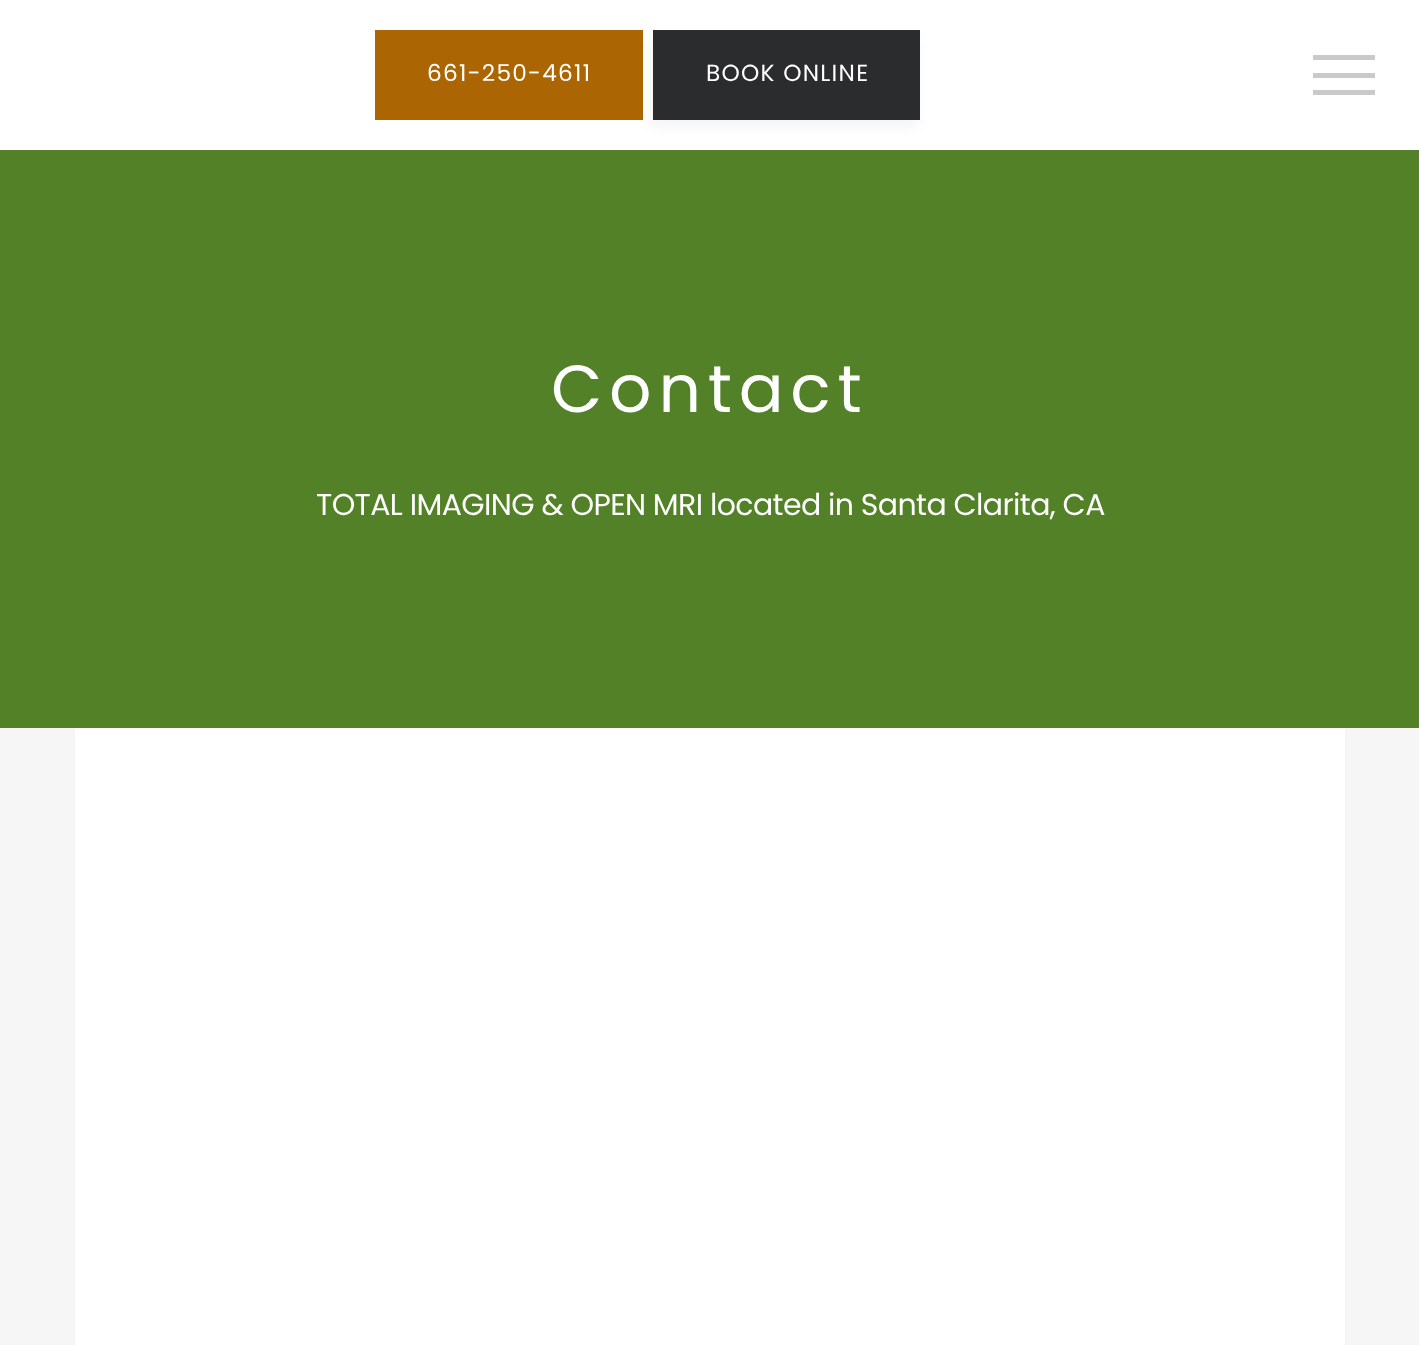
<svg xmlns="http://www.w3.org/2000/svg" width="1419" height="1345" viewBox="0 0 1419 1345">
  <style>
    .t1 { font: 23.25px Poppins; letter-spacing: 1.25px; fill: #fff; }
    .t2 { font: 66.5px Poppins; letter-spacing: 6.75px; fill: #fff; }
    .t3 { font: 30px Poppins; letter-spacing: -0.6px; fill: #fff; }
  </style>
  <rect width="100%" height="100%" fill="#fff"/>
  <rect x="375" y="30" width="268" height="90" fill="#ab6503"/>
  <text x="427" y="81" class="t1">661-250-4611</text>
  <rect x="650" y="38" width="268" height="90" fill="#0000000a" filter="blur(6px)"/>
  <rect x="653" y="30" width="267" height="90" fill="#2b2c2e"/>
  <text x="706" y="81" class="t1">BOOK ONLINE</text>
  <rect x="1313" y="55" width="62" height="5" fill="#cacaca"/>
  <rect x="1313" y="90" width="62" height="5" fill="#cacaca"/>
  <rect x="1313" y="73" width="62" height="5" fill="#cacaca"/>
  <rect x="0" y="150" width="1419" height="578" fill="#538128"/>
  <text x="551" y="412" class="t2">Contact</text>
  <text x="316" y="515" class="t3">TOTAL IMAGING &amp; OPEN MRI located in Santa Clarita, CA</text>
  <rect x="0" y="728" width="1419" height="617" fill="#f6f6f6"/>
  <rect x="75" y="728" width="1270" height="617" fill="#fff"/>
</svg>
